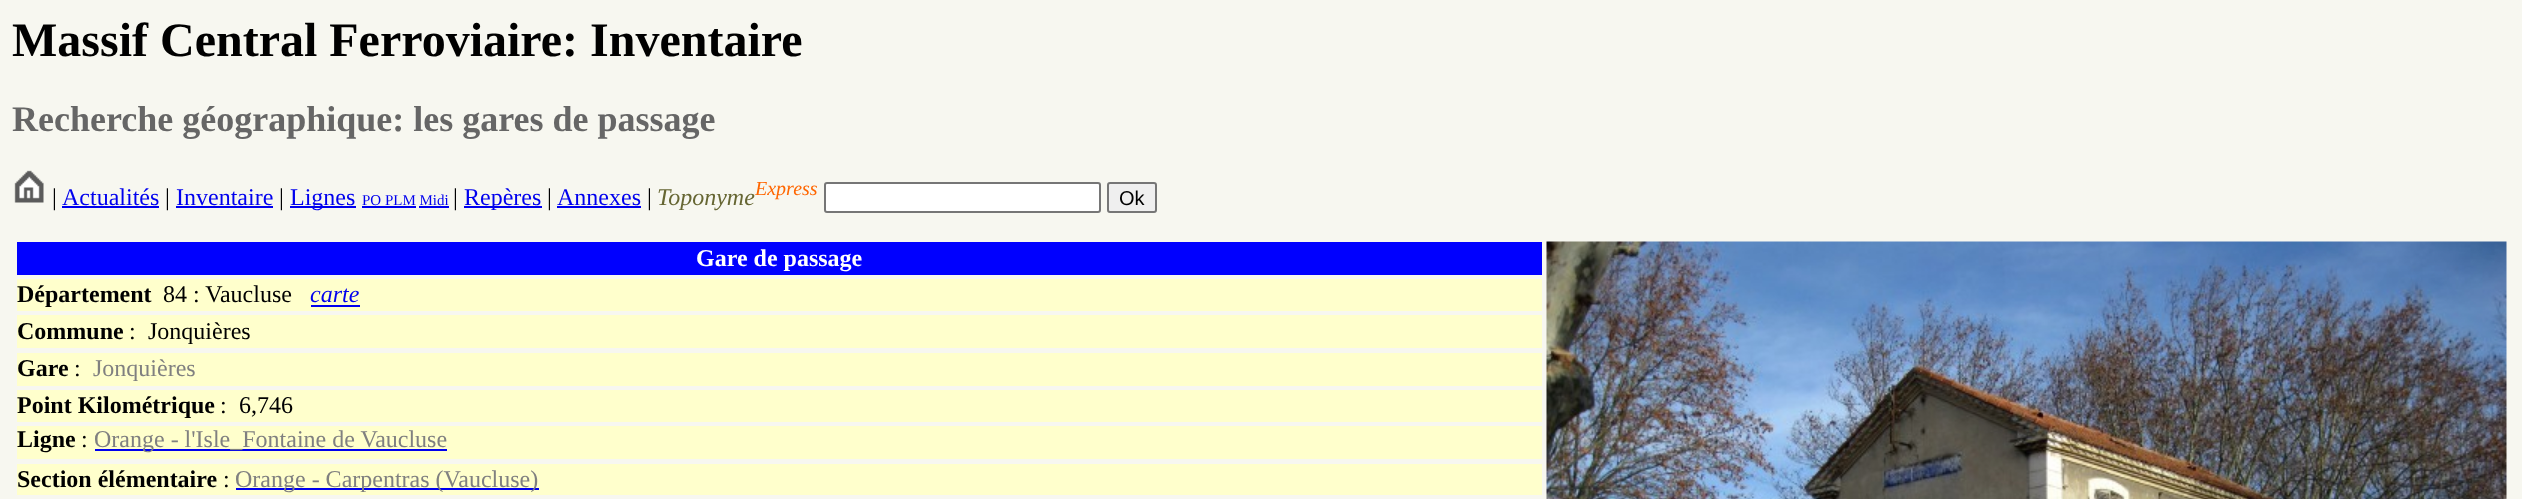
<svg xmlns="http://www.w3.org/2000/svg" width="2522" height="499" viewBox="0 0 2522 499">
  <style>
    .t1 { font: bold 48px Liberation Serif; fill: #000; }
    .t2 { font: bold 36px Liberation Serif; fill: #666; }
    .t3 { font: 24px Liberation Serif; fill: #000; }
    .t4 { font: 24px Liberation Serif; fill: #00e; }
    .t5 { font: 15px Liberation Serif; fill: #00e; }
    .t6 { font: italic 24px Liberation Serif; fill: #663; }
    .t7 { font: italic 20px Liberation Serif; fill: #f60; }
    .t8 { font: 20px Liberation Sans; fill: #000; }
    .t9 { font: bold 24px Liberation Serif; fill: #fff; }
    .t10 { font: bold 24px Liberation Serif; fill: #000; }
    .t11 { font: italic 24px Liberation Serif; fill: #00e; }
    .t12 { font: 24px Liberation Serif; fill: #808080; }
  </style>
  <rect width="100%" height="100%" fill="#f7f7f0"/>
  <text x="12" y="56" class="t1">Massif Central Ferroviaire: Inventaire</text>
  <text x="12" y="131" class="t2">Recherche géographique: les gares de passage</text>
  <image x="14" y="170" width="30" height="33" href="images/1.png"/>
  <text x="52" y="205" class="t3">|</text>
  <text x="62" y="205" class="t4">Actualités</text>
  <rect x="62" y="206" width="97" height="2" fill="#00e"/>
  <text x="165" y="205" class="t3">|</text>
  <text x="176" y="205" class="t4">Inventaire</text>
  <rect x="176" y="206" width="97" height="2" fill="#00e"/>
  <text x="279" y="205" class="t3">|</text>
  <rect x="290" y="206" width="66" height="2" fill="#00e"/>
  <text x="290" y="205" class="t4">Lignes</text>
  <text x="362" y="205" class="t5">PO PLM Midi</text>
  <rect x="362" y="206" width="54" height="2" fill="#00e"/>
  <rect x="419" y="206" width="30" height="2" fill="#00e"/>
  <text x="453" y="205" class="t3">|</text>
  <rect x="464" y="206" width="78" height="2" fill="#00e"/>
  <text x="464" y="205" class="t4">Repères</text>
  <text x="547" y="205" class="t3">|</text>
  <text x="557" y="205" class="t4">Annexes</text>
  <rect x="557" y="206" width="84" height="2" fill="#00e"/>
  <text x="647" y="205" class="t3">|</text>
  <text x="657" y="205" class="t6">Toponyme</text>
  <text x="755" y="195" class="t7">Express</text>
  <rect x="825" y="183" width="275" height="29" rx="2" fill="#fff" stroke="#767676" stroke-width="2"/>
  <rect x="1108" y="183" width="48" height="29" rx="2" fill="#efefef" stroke="#767676" stroke-width="2"/>
  <text x="1119" y="205" class="t8">Ok</text>
  <rect x="17" y="242" width="1525" height="33" fill="#00f"/>
  <text x="696" y="266" class="t9">Gare de passage</text>
  <image x="1546" y="241" width="961" height="258" href="images/2.png"/>
  <rect x="17" y="279" width="1525" height="32" fill="#ffc"/>
  <text x="17" y="302" class="t10">Département</text>
  <text x="163" y="302" class="t3">84 : Vaucluse</text>
  <text x="310" y="302" class="t11">carte</text>
  <rect x="311" y="305" width="49" height="2" fill="#00e"/>
  <rect x="17" y="315" width="1525" height="33" fill="#ffc"/>
  <text x="17" y="339" class="t10">Commune</text>
  <text x="129" y="339" class="t3">:</text>
  <text x="148" y="339" class="t3">Jonquières</text>
  <rect x="17" y="353" width="1525" height="33" fill="#ffc"/>
  <text x="17" y="376" class="t10">Gare</text>
  <text x="74" y="376" class="t3">:</text>
  <text x="93" y="376" class="t12">Jonquières</text>
  <rect x="17" y="390" width="1525" height="32" fill="#ffc"/>
  <text x="17" y="413" class="t10">Point Kilométrique</text>
  <text x="220" y="413" class="t3">:</text>
  <text x="239" y="413" class="t3">6,746</text>
  <rect x="17" y="426" width="1525" height="33" fill="#ffc"/>
  <text x="17" y="447" class="t10">Ligne</text>
  <text x="81" y="447" class="t3">:</text>
  <rect x="95" y="449" width="352" height="2" fill="#00e"/>
  <text x="94" y="447" class="t12">Orange - l'Isle_Fontaine de Vaucluse</text>
  <rect x="17" y="464" width="1525" height="31" fill="#ffc"/>
  <text x="17" y="487" class="t10">Section élémentaire</text>
  <text x="223" y="487" class="t3">:</text>
  <rect x="236" y="488" width="303" height="2" fill="#00e"/>
  <text x="235" y="487" class="t12">Orange - Carpentras (Vaucluse)</text>
</svg>
